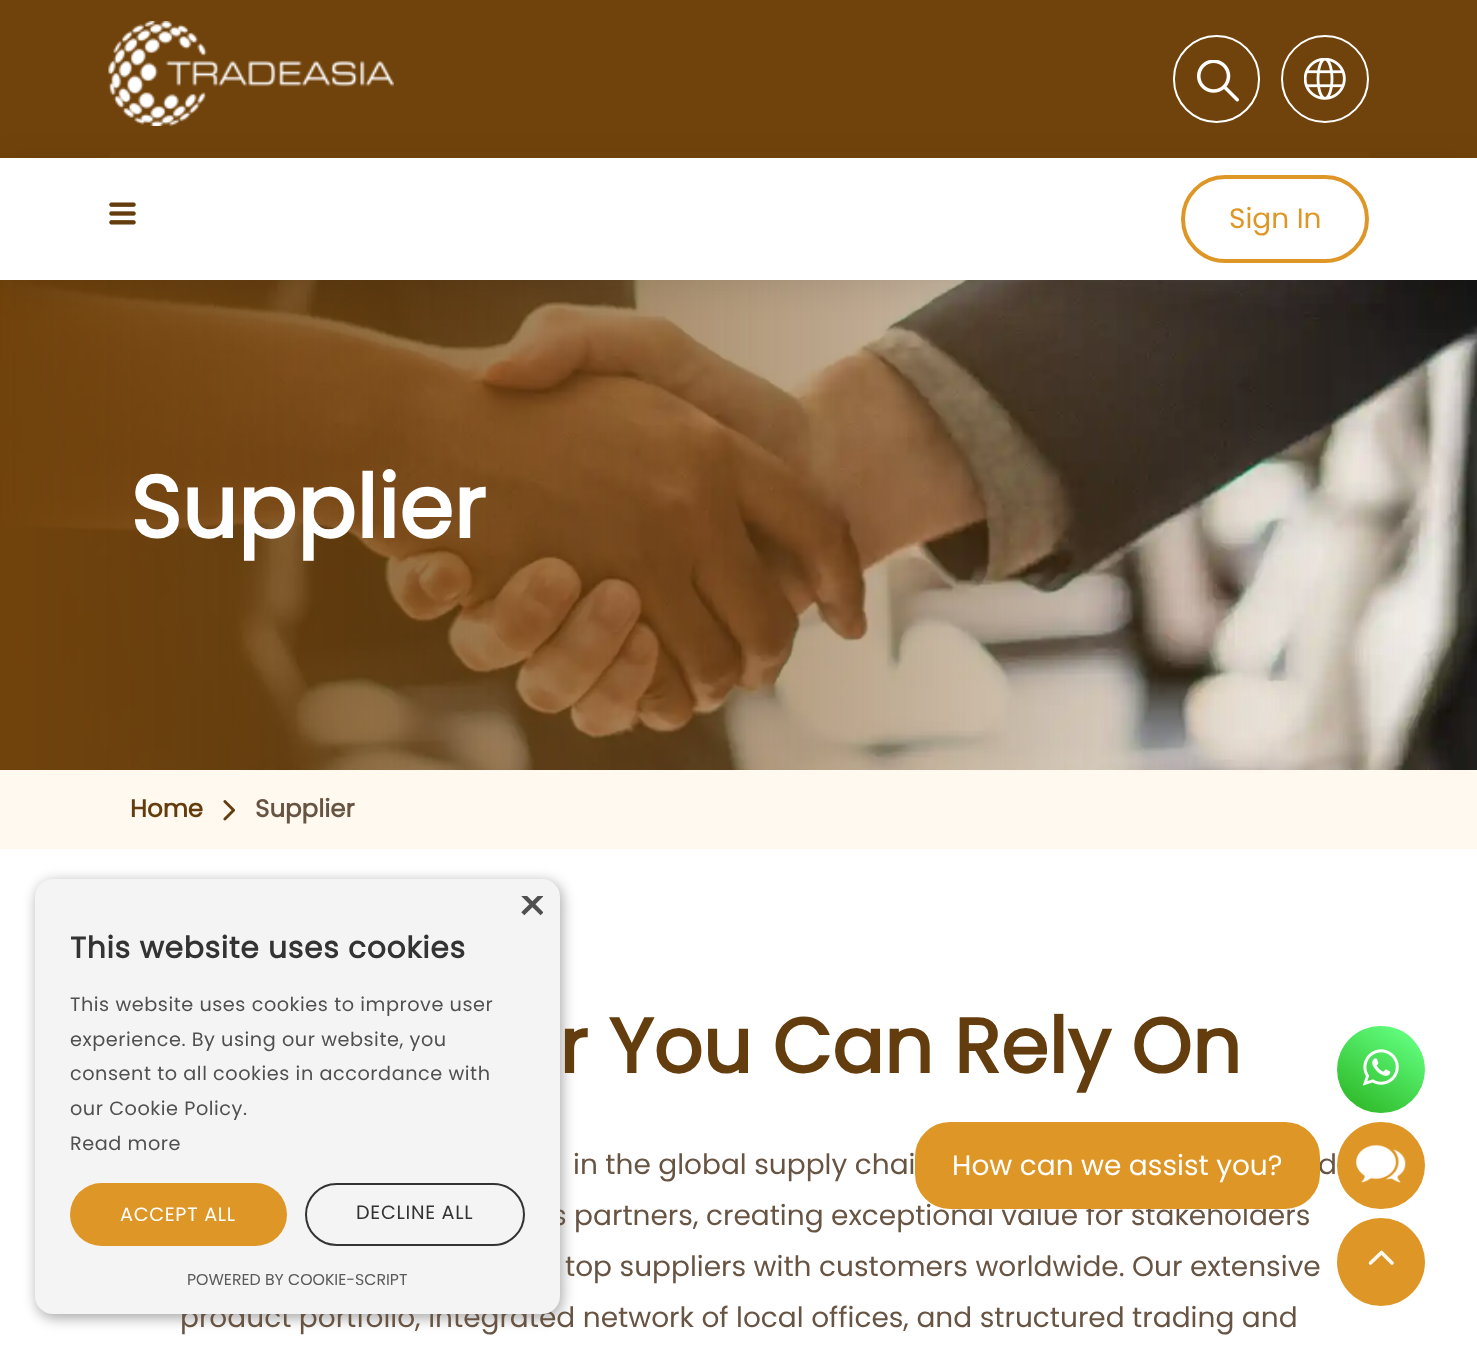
<svg xmlns="http://www.w3.org/2000/svg" width="1477" height="1349" viewBox="0 0 1477 1349">
  <style>
    .t1 { font: 28px Poppins; fill: #de9726; }
    .t2 { font: bold 87.5px Poppins; fill: #fff; }
    .t3 { font: bold 24.5px Poppins; fill: #643d0e; }
    .t4 { font: bold 24.5px Poppins; fill: #685443; }
    .t5 { font: 28px Poppins; fill: #685443; }
    .t6 { font: 51px Poppins; fill: #505050; }
    .t7 { font: bold 29.75px Poppins; letter-spacing: 0.7px; fill: #333; }
    .t8 { font: 19.25px Poppins; letter-spacing: 0.55px; fill: #505050; }
    .t9 { font: 19.25px Poppins; letter-spacing: 0.7px; fill: #fff; }
    .t10 { font: 19.25px Poppins; letter-spacing: 0.7px; fill: #333; }
    .t11 { font: 15.75px Poppins; fill: #5a5a5a; }
    .t12 { font: bold 77px Poppins; fill: #643d0e; }
    .t13 { font: 28px Poppins; fill: #fff; }
  </style>
  <defs>
    <clipPath id="clip1"><rect x="516" y="896" width="27" height="26"/></clipPath>
    <linearGradient id="g1" gradientUnits="userSpaceOnUse" x1="1413" y1="1018" x2="1348" y2="1120"><stop offset="0.16" stop-color="#5efa79"/><stop offset="0.86" stop-color="#32bd2e"/></linearGradient>
  </defs>
  <rect width="100%" height="100%" fill="#fff"/>
  <rect x="0" y="0" width="1477" height="158" fill="#71430c"/>
  <image x="0" y="280" width="1477" height="490" href="images/5.png"/>
  <rect x="0" y="165" width="1477" height="122" fill="#0000001a" filter="blur(17.5px)"/>
  <rect x="109" y="152" width="1260" height="6" fill="#71430c"/>
  <image x="108" y="21" width="286" height="105" href="images/1.png"/>
  <rect x="1174" y="36" width="85" height="86" rx="42.5" fill="none" stroke="#fff" stroke-width="2"/>
  <image x="1197" y="60" width="42" height="42" href="images/2.png"/>
  <circle cx="1325" cy="79" r="43" fill="none" stroke="#fff" stroke-width="2"/>
  <image x="1304" y="58" width="42" height="42" href="images/3.png"/>
  <rect x="0" y="158" width="1477" height="122" fill="#fff"/>
  <image x="109" y="202" width="27" height="23" href="images/4.png"/>
  <rect x="1183" y="177" width="184" height="84" rx="42" fill="none" stroke="#de9726" stroke-width="4"/>
  <text x="1229" y="228" class="t1">Sign In</text>
  <text x="130" y="538" class="t2">Supplier</text>
  <rect x="0" y="770" width="1477" height="79" fill="#fff9ef"/>
  <text x="130" y="817" class="t3">Home</text>
  <image x="223" y="800" width="13" height="21" href="images/6.png"/>
  <text x="255" y="817" class="t4">Supplier</text>
  <rect x="37" y="882" width="525" height="436" rx="18" fill="#00000059" filter="blur(7px)"/>
  <text x="552" y="1225" class="t5">s partners, creating exceptional value for stakeholders</text>
  <text x="180" y="1327" class="t5">product portfolio, integrated network of local offices, and structured trading and</text>
  <rect x="35" y="879" width="525" height="435" rx="18" fill="#f4f4f4"/>
  <g clip-path="url(#clip1)">
    <text x="516" y="923" class="t6">×</text>
  </g>
  <text x="70" y="958" class="t7">This website uses cookies</text>
  <text x="70" y="1011" class="t8">This website uses cookies to improve user</text>
  <text x="70" y="1046" class="t8">experience. By using our website, you</text>
  <text x="70" y="1080" class="t8">consent to all cookies in accordance with</text>
  <text x="70" y="1115" class="t8">our Cookie Policy.</text>
  <text x="70" y="1150" class="t8">Read more</text>
  <rect x="70" y="1183" width="217" height="63" rx="31.5" fill="#de9726"/>
  <text x="120" y="1221" class="t9">ACCEPT ALL</text>
  <rect x="306" y="1184" width="218" height="61" rx="30.5" fill="none" stroke="#333" stroke-width="2"/>
  <text x="356" y="1219" class="t10">DECLINE ALL</text>
  <text x="187" y="1285" class="t11">POWERED BY COOKIE-SCRIPT</text>
  <text x="559" y="1073" class="t12">r You Can Rely On</text>
  <text x="573" y="1174" class="t5">in the global supply chai</text>
  <text x="1318" y="1174" class="t5">d</text>
  <text x="565" y="1276" class="t5">top suppliers with customers worldwide. Our extensive</text>
  <rect x="1337" y="1026" width="88" height="87" rx="43.5" fill="url(#g1)"/>
  <image x="1362" y="1049" width="37" height="37" href="images/7.png"/>
  <rect x="916" y="1123" width="403" height="85" rx="34" fill="#de9726" stroke="#de9726" stroke-width="2"/>
  <text x="952" y="1175" class="t13">How can we assist you?</text>
  <rect x="1337" y="1122" width="88" height="87" rx="43.5" fill="#de9726"/>
  <image x="1356" y="1145" width="50" height="38" href="images/8.png"/>
  <circle cx="1381" cy="1262" r="44" fill="#de9726"/>
  <path d="M1392 1263L1381.5 1252.5L1370.5 1263" fill="none" stroke="#fff9ef" stroke-width="3.6" stroke-linecap="round" stroke-linejoin="round"/>
</svg>
